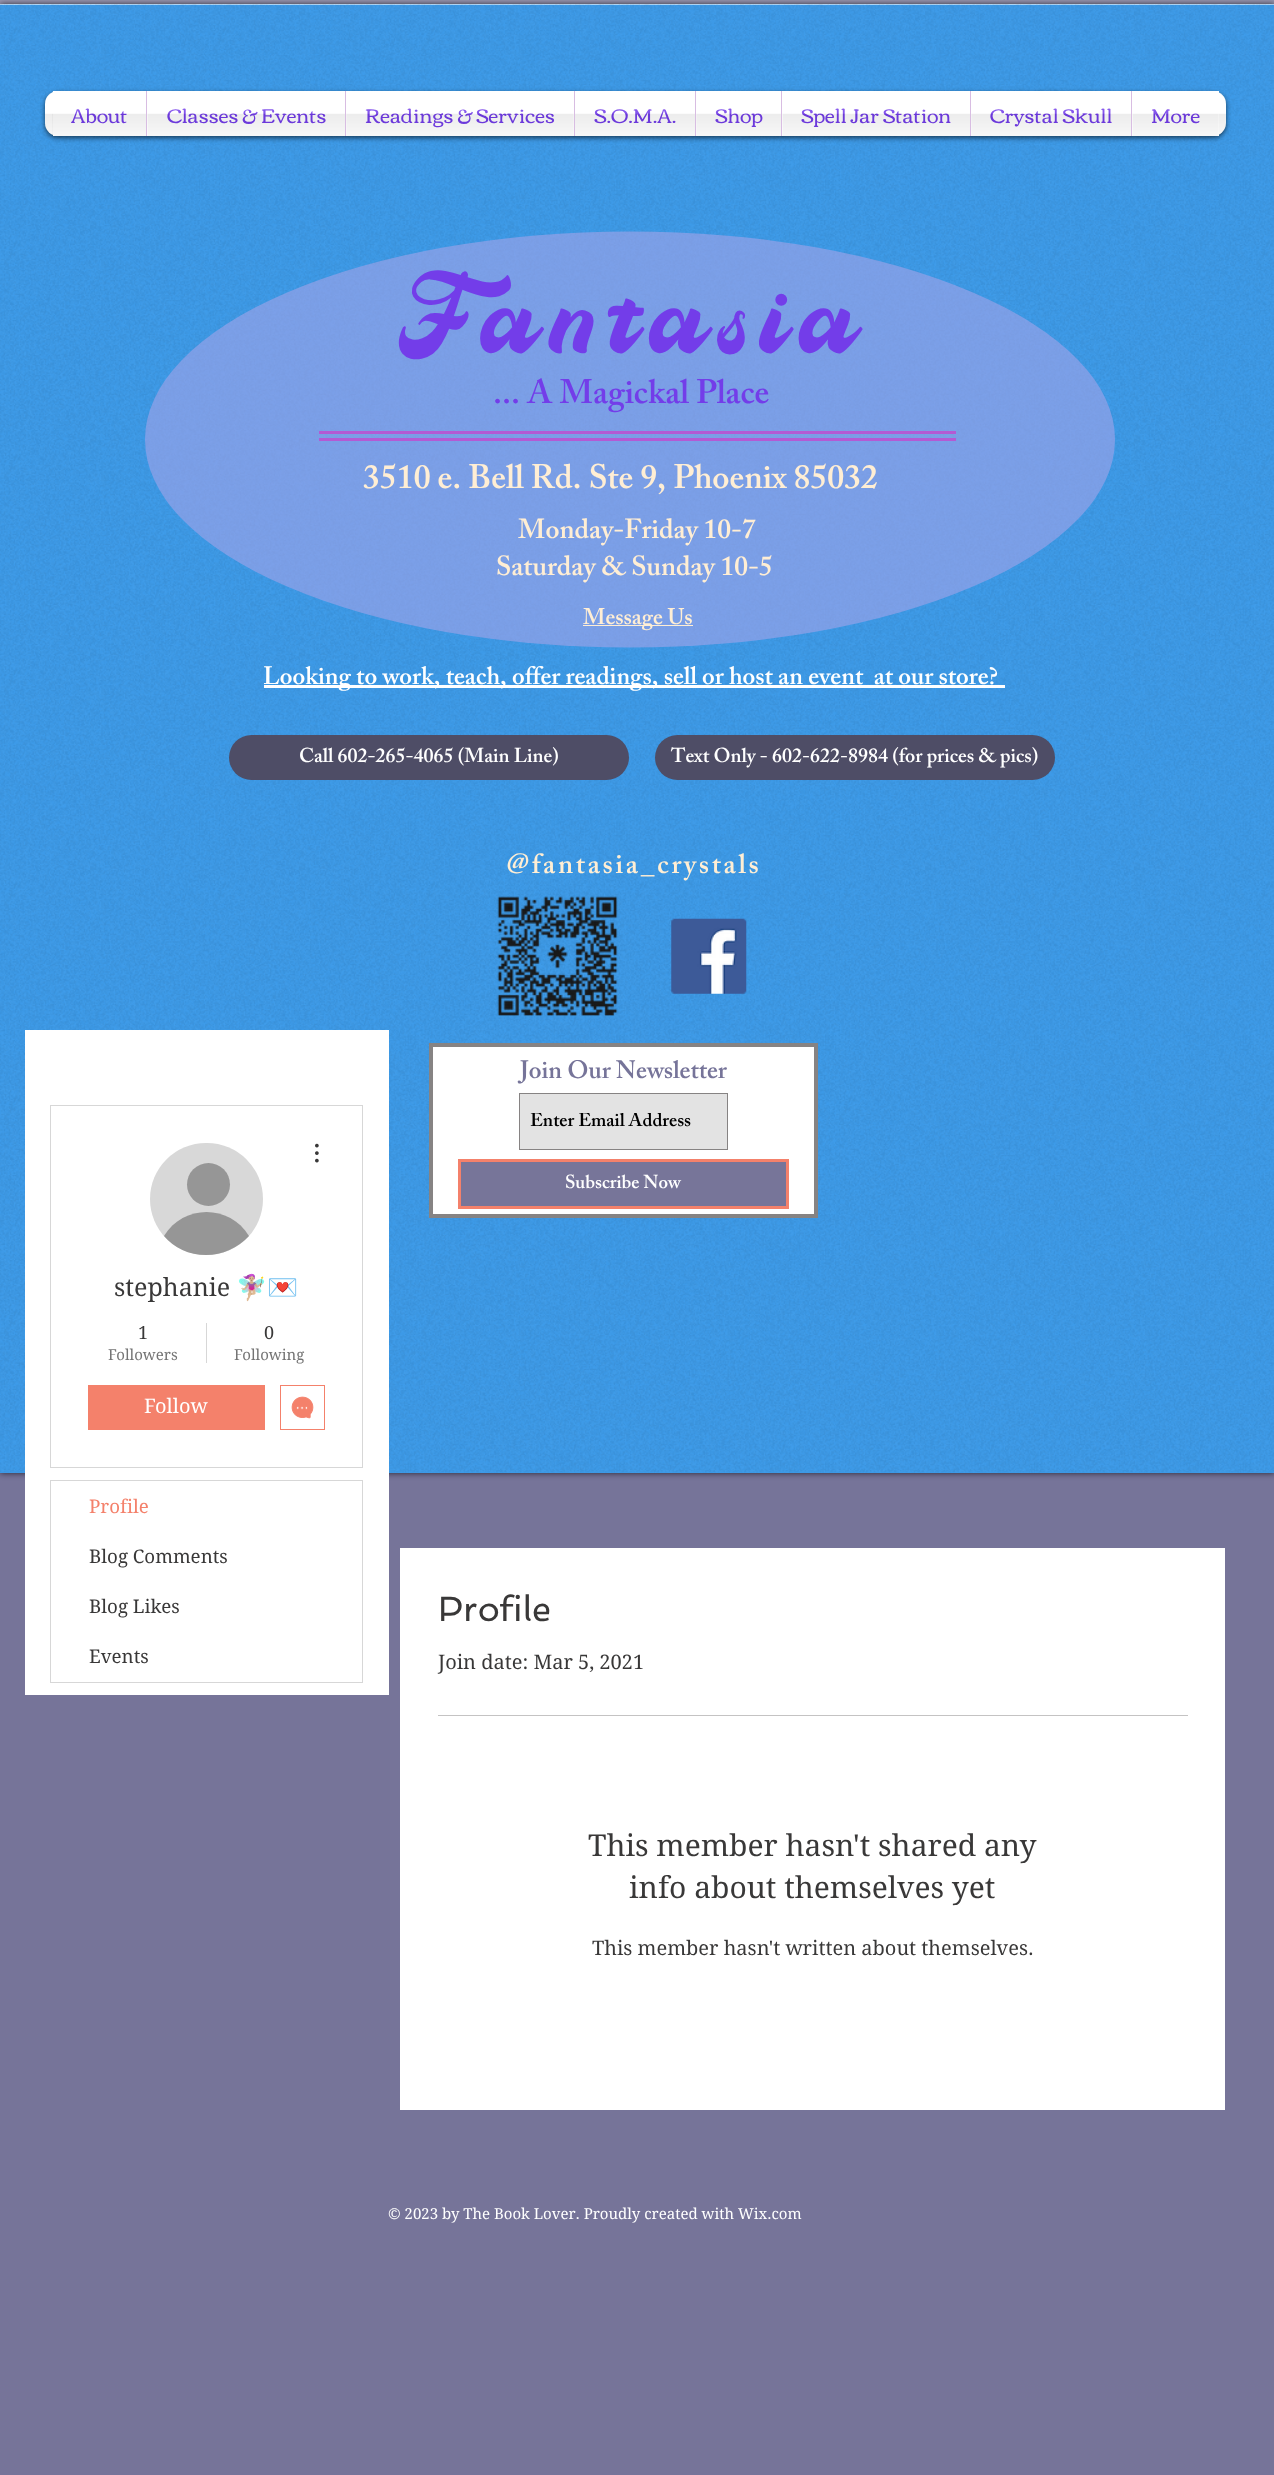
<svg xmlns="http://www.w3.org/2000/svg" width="1274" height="2475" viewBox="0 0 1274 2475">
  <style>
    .t1 { font: 20px Corben; fill: #733de9; }
    .t2 { font: 121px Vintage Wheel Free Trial; letter-spacing: 12px; fill: #733de9; }
    .t3 { font: 600 33.75px 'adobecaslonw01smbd'; fill: #733de9; }
    .t4 { font: 600 33.75px 'adobecaslonw01smbd'; fill: #ffeed4; }
    .t5 { font: 600 27.5px 'adobecaslonw01smbd'; fill: #ffeed4; }
    .t6 { font: 600 22.5px 'adobecaslonw01smbd'; fill: #ffeed4; }
    .t7 { font: 600 25px 'adobecaslonw01smbd'; fill: #fff; }
    .t8 { font: 600 20px 'adobecaslonw01smbd'; fill: #fff; }
    .t9 { font: 600 27.5px 'adobecaslonw01smbd'; letter-spacing: 2.75px; fill: #ffeed4; }
    .t10 { font: 600 25px 'adobecaslonw01smbd'; fill: #767499; }
    .t11 { font: 600 18.75px 'adobecaslonw01smbd'; fill: #000; }
    .t12 { font: 600 18.75px 'adobecaslonw01smbd'; fill: #fff; }
    .t13 { font: 25px 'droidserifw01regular'; fill: #393838; }
    .t14 { font: 25px Noto Color Emoji; fill: #393838; }
    .t15 { font: 18px 'droidserifw01regular'; fill: #393838; }
    .t16 { font: 15px 'droidserifw01regular'; fill: #747474; }
    .t17 { font: 20px 'droidserifw01regular'; fill: #fff; }
    .t18 { font: 18.75px 'droidserifw01regular'; fill: #f4816b; }
    .t19 { font: 18.75px 'droidserifw01regular'; fill: #393838; }
    .t20 { font: 35px Spinnaker; fill: #393838; }
    .t21 { font: 20px 'droidserifw01regular'; fill: #393838; }
    .t22 { font: 30px 'droidserifw01regular'; fill: #393838; }
    .t23 { font: 15px 'droidserifw01regular'; fill: #fff; }
  </style>
  <defs>
    <clipPath id="clip1"><path d="M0 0H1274V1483H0ZM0 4H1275V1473H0Z" clip-rule="evenodd"/></clipPath>
    <clipPath id="clip2"><rect x="530" y="1113" width="193" height="18"/></clipPath>
  </defs>
  <rect width="100%" height="100%" fill="#767499"/>
  <image x="0" y="0" width="1274" height="4" href="images/1.png"/>
  <rect x="0" y="5" width="1274" height="1468" fill="#3d9be9"/>
  <rect x="0" y="4" width="1274" height="1" fill="#b0d6f6"/>
  <g clip-path="url(#clip1)">
    <rect x="0" y="4" width="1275" height="1469" fill="#000000b3" filter="blur(3px)"/>
  </g>
  <image x="0" y="4" width="1274" height="1469" href="images/2.png"/>
  <rect x="45" y="93" width="1181" height="45" rx="13" fill="#00000099" filter="blur(2.5px)"/>
  <rect x="45" y="91" width="1181" height="45" rx="13" fill="#fff"/>
  <image x="45" y="92" width="1181" height="43" href="images/3.png"/>
  <rect x="53" y="91" width="93" height="45" fill="#fff"/>
  <text x="71" y="123" class="t1">About</text>
  <image x="52" y="91" width="94" height="45" href="images/4.png"/>
  <rect x="147" y="113" width="198" height="22" fill="#fff"/>
  <rect x="146" y="91" width="1" height="45" fill="#d8bde2"/>
  <text x="167" y="123" class="t1">Classes &amp; Events</text>
  <image x="147" y="108" width="198" height="28" href="images/5.png"/>
  <rect x="346" y="113" width="228" height="22" fill="#fff"/>
  <rect x="345" y="91" width="1" height="45" fill="#d8bde2"/>
  <text x="365" y="123" class="t1">Readings &amp; Services</text>
  <image x="346" y="108" width="228" height="28" href="images/6.png"/>
  <rect x="575" y="113" width="120" height="22" fill="#fff"/>
  <rect x="574" y="91" width="1" height="45" fill="#d8bde2"/>
  <text x="594" y="123" class="t1">S.O.M.A.</text>
  <image x="575" y="109" width="120" height="27" href="images/7.png"/>
  <rect x="696" y="113" width="85" height="22" fill="#fff"/>
  <rect x="695" y="91" width="1" height="45" fill="#d8bde2"/>
  <text x="715" y="123" class="t1">Shop</text>
  <image x="696" y="108" width="85" height="28" href="images/8.png"/>
  <rect x="782" y="113" width="188" height="22" fill="#fff"/>
  <rect x="781" y="91" width="1" height="45" fill="#d8bde2"/>
  <text x="801" y="123" class="t1">Spell Jar Station</text>
  <image x="782" y="108" width="188" height="28" href="images/9.png"/>
  <rect x="971" y="113" width="160" height="22" fill="#fff"/>
  <rect x="970" y="91" width="1" height="45" fill="#d8bde2"/>
  <text x="990" y="123" class="t1">Crystal Skull</text>
  <image x="971" y="108" width="160" height="28" href="images/10.png"/>
  <rect x="1132" y="91" width="87" height="45" fill="#fff"/>
  <rect x="1131" y="91" width="1" height="45" fill="#d8bde2"/>
  <text x="1151" y="123" class="t1">More</text>
  <image x="1132" y="109" width="87" height="27" href="images/11.png"/>
  <ellipse cx="630" cy="439.5" rx="485" ry="208" fill="#a2a3e99e"/>
  <text x="399" y="353" class="t2">Fantasia</text>
  <text x="493" y="403" class="t3">... A Magickal Place</text>
  <rect x="319" y="431" width="637" height="3" fill="#b45ad3"/>
  <rect x="319" y="438" width="637" height="3" fill="#b45ad3"/>
  <text x="363" y="488" class="t4">3510 e. Bell Rd. Ste 9, Phoenix 85032</text>
  <text x="518" y="538" class="t5">Monday-Friday 10-7</text>
  <text x="496" y="575" class="t5">Saturday &amp; Sunday 10-5</text>
  <rect x="583" y="625" width="110" height="1" fill="#ffeed4"/>
  <text x="583" y="624" class="t6">Message Us</text>
  <rect x="264" y="685" width="741" height="3" fill="#fff"/>
  <text x="263" y="684" class="t7" xml:space="preserve">Looking to work, teach, offer readings, sell or host an event  at our store?</text>
  <rect x="229" y="735" width="400" height="45" rx="22.5" fill="#4e4d66"/>
  <text x="299" y="762" class="t8">Call 602-265-4065 (Main Line)</text>
  <rect x="655" y="735" width="400" height="45" rx="22.5" fill="#4e4d66"/>
  <text x="671" y="762" class="t8">Text Only - 602-622-8984 (for prices &amp; pics)</text>
  <text x="507" y="873" class="t9">@fantasia_crystals</text>
  <image x="497" y="896" width="121" height="120" href="images/12.png"/>
  <image x="671" y="918" width="76" height="76" href="images/13.png"/>
  <rect x="431" y="1045" width="385" height="171" fill="#fff" stroke="#868383" stroke-width="4"/>
  <text x="520" y="1078" class="t10">Join Our Newsletter</text>
  <rect x="519.5" y="1093.5" width="208" height="56" fill="#e3e3e3" stroke="#868383"/>
  <g clip-path="url(#clip2)">
    <text x="530" y="1126" class="t11">Enter Email Address</text>
  </g>
  <rect x="459.5" y="1160.5" width="328" height="47" fill="#777599" stroke="#f4816b" stroke-width="3"/>
  <text x="565" y="1188" class="t12">Subscribe Now</text>
  <rect x="25" y="1030" width="364" height="665" fill="#fff"/>
  <rect x="50.5" y="1105.5" width="312" height="362" fill="none" stroke="#d7d7d7"/>
  <rect x="150" y="1143" width="113" height="112" rx="56" fill="#d8d8d8"/>
  <circle cx="208.5" cy="1184.5" r="21.5" fill="#969696"/>
  <path d="M206 1255C222 1255 238 1248 249 1236C230 1204 183 1204 164 1236C174 1248 189 1255 206 1255Z" fill="#969696"/>
  <image x="315" y="1143" width="4" height="20" href="images/14.png"/>
  <text x="114" y="1296" class="t13">stephanie</text>
  <text x="236" y="1296" class="t14">🧚🏼‍♀️💌</text>
  <text x="138" y="1339" class="t15">1</text>
  <text x="108" y="1360" class="t16">Followers</text>
  <rect x="206" y="1323" width="1" height="40" fill="#d7d7d7"/>
  <text x="264" y="1339" class="t15">0</text>
  <text x="234" y="1360" class="t16">Following</text>
  <rect x="88" y="1385" width="177" height="45" fill="#f4816b"/>
  <text x="144" y="1413" class="t17">Follow</text>
  <rect x="280.5" y="1385.5" width="44" height="44" fill="none" stroke="#f4816b"/>
  <image x="291" y="1396" width="23" height="23" href="images/15.png"/>
  <rect x="50.5" y="1480.5" width="312" height="202" fill="none" stroke="#d7d7d7"/>
  <text x="89" y="1513" class="t18">Profile</text>
  <text x="89" y="1563" class="t19">Blog Comments</text>
  <text x="89" y="1613" class="t19">Blog Likes</text>
  <text x="89" y="1663" class="t19">Events</text>
  <rect x="400" y="1548" width="825" height="562" fill="#fff"/>
  <text x="438" y="1621" class="t20">Profile</text>
  <text x="438" y="1669" class="t21">Join date: Mar 5, 2021</text>
  <rect x="438" y="1715" width="750" height="1" fill="#c4c3c3"/>
  <text x="588" y="1856" class="t22">This member hasn't shared any</text>
  <text x="629" y="1898" class="t22">info about themselves yet</text>
  <text x="592" y="1955" class="t21">This member hasn't written about themselves.</text>
  <text x="388" y="2219" class="t23">© 2023 by The Book Lover. Proudly created with Wix.com</text>
</svg>
